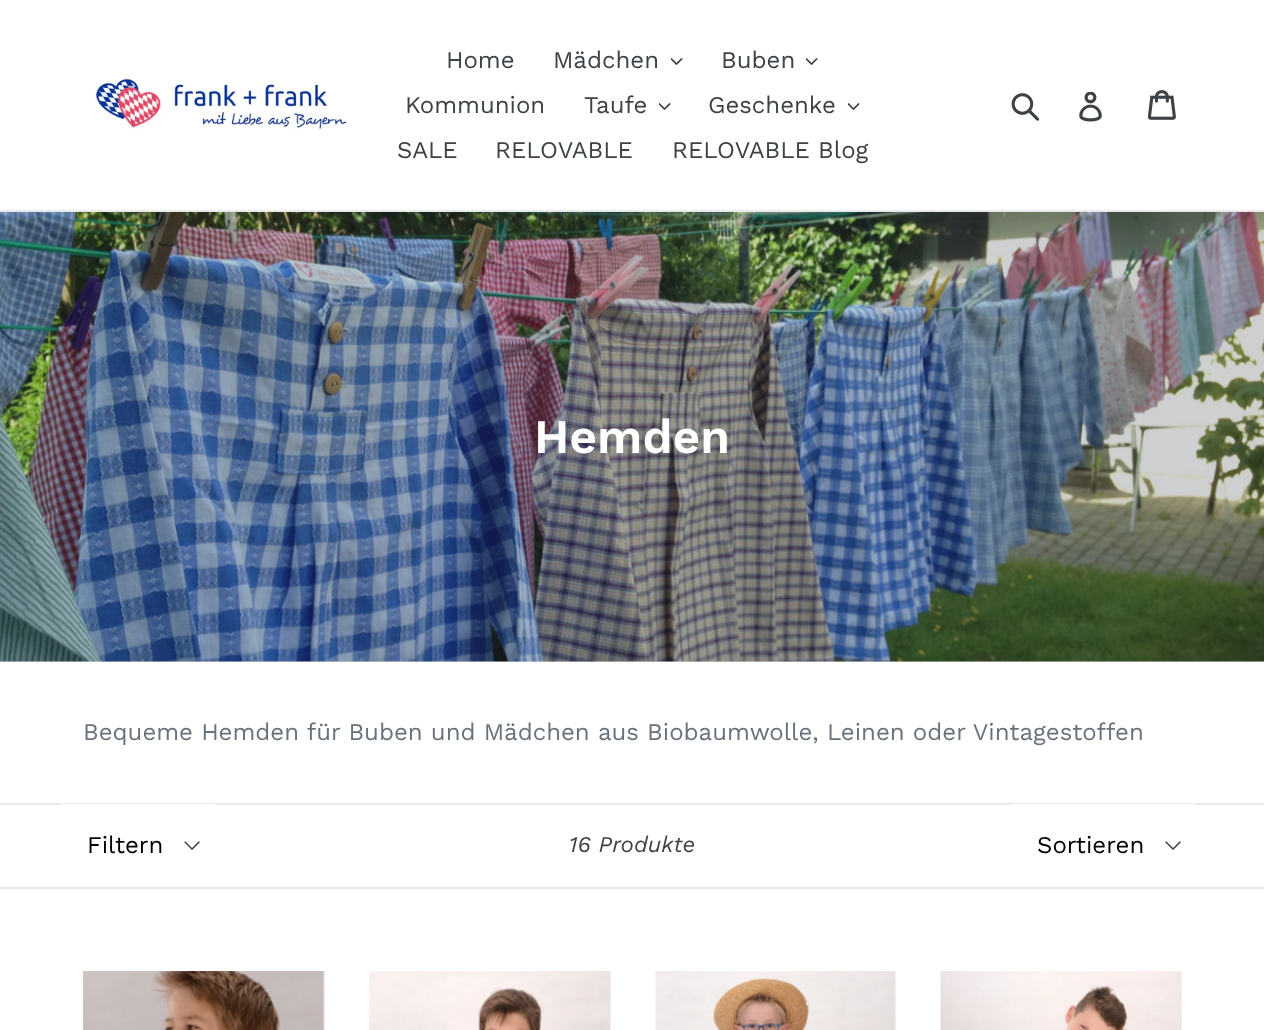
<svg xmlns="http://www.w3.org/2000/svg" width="1264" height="1030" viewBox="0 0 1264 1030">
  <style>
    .t1 { font: 24px Work Sans; fill: #3d4246; }
    .t2 { font: 600 48px Work Sans; fill: #fff; }
    .t3 { font: 24px Work Sans; fill: #69727b; }
    .t4 { font: 24px Work Sans; fill: #000; }
    .t5 { font: italic 22.5px Work Sans; fill: #3d4246; }
  </style>
  <rect width="100%" height="100%" fill="#fff"/>
  <rect x="0" y="661" width="1264" height="1" fill="#cfd0d1"/>
  <rect x="0" y="210" width="1264" height="2" fill="#e8e9eb"/>
  <image x="95" y="76" width="253" height="55" href="images/1.png"/>
  <text x="446" y="68" class="t1">Home</text>
  <text x="553" y="68" class="t1">Mädchen</text>
  <image x="671" y="58" width="12" height="7" href="images/2.png"/>
  <text x="721" y="68" class="t1">Buben</text>
  <image x="806" y="58" width="12" height="7" href="images/2.png"/>
  <text x="405" y="113" class="t1">Kommunion</text>
  <text x="584" y="113" class="t1">Taufe</text>
  <image x="659" y="103" width="12" height="7" href="images/2.png"/>
  <text x="708" y="113" class="t1">Geschenke</text>
  <image x="848" y="103" width="12" height="7" href="images/2.png"/>
  <text x="397" y="158" class="t1">SALE</text>
  <text x="495" y="158" class="t1">RELOVABLE</text>
  <text x="672" y="158" class="t1">RELOVABLE Blog</text>
  <image x="1011" y="93" width="29" height="28" href="images/3.png"/>
  <image x="1079" y="92" width="23" height="30" href="images/4.png"/>
  <image x="1148" y="90" width="28" height="30" href="images/5.png"/>
  <image x="0" y="212" width="1264" height="450" href="images/6.png"/>
  <text x="534" y="453" class="t2">Hemden</text>
  <text x="83" y="740" class="t3">Bequeme Hemden für Buben und Mädchen aus Biobaumwolle, Leinen oder Vintagestoffen</text>
  <rect x="0" y="803" width="1264" height="2" fill="#e8e9eb"/>
  <rect x="0" y="887" width="1264" height="2" fill="#e8e9eb"/>
  <rect x="60" y="804" width="156" height="83" rx="3" fill="#fff"/>
  <image x="184" y="841" width="16" height="9" href="images/7.png"/>
  <text x="87" y="853" class="t4">Filtern</text>
  <text x="569" y="852" class="t5">16 Produkte</text>
  <rect x="1010" y="804" width="187" height="83" rx="3" fill="#fff"/>
  <image x="1165" y="841" width="16" height="9" href="images/7.png"/>
  <text x="1037" y="853" class="t4">Sortieren</text>
  <image x="83" y="971" width="242" height="59" href="images/8.png"/>
  <image x="368" y="971" width="243" height="59" href="images/9.png"/>
  <image x="655" y="971" width="241" height="59" href="images/10.png"/>
  <image x="940" y="971" width="242" height="59" href="images/11.png"/>
</svg>
